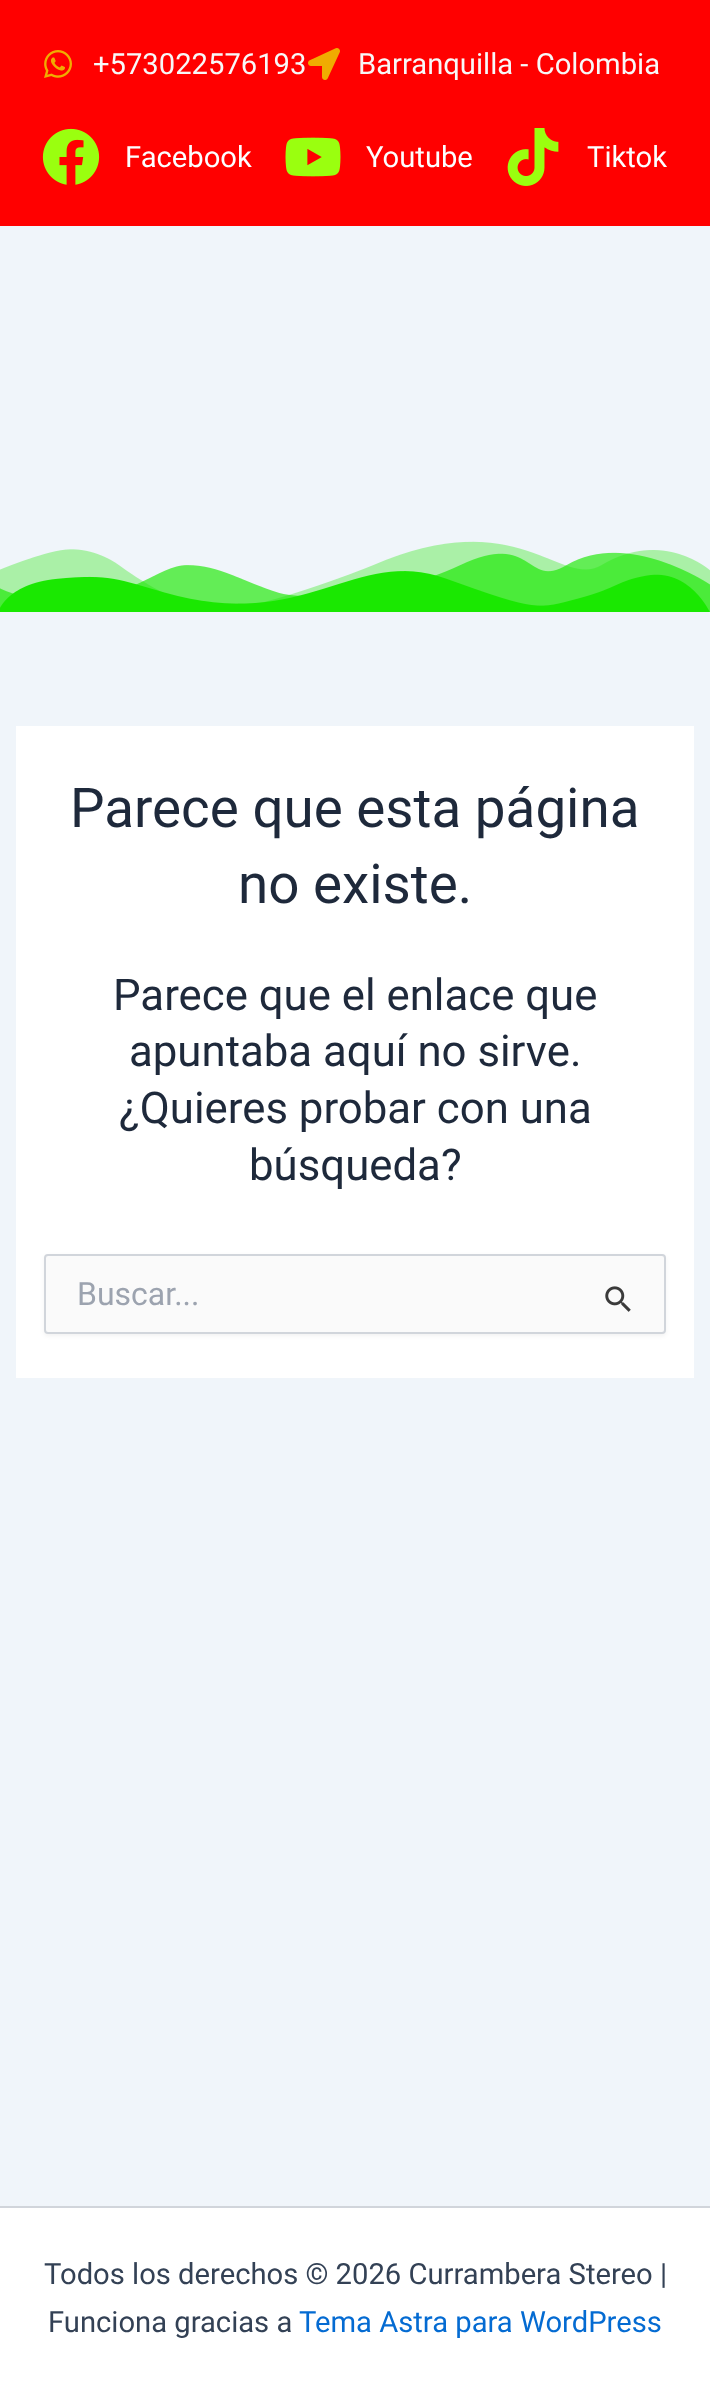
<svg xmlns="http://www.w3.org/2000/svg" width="710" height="2408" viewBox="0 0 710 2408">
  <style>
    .t1 { font: 29.2px Roboto; fill: #f8f8f8; }
    .t2 { font: 29.2px Roboto; fill: #fdfeff; }
    .t3 { font: 54.75px Roboto; fill: #1e293b; }
    .t4 { font: 43.75px Roboto; fill: #1e293b; }
    .t5 { font: 32px Roboto; fill: #9ca3af; }
    .t6 { font: 29.2px Roboto; fill: #334155; }
    .t7 { font: 29.2px Roboto; fill: #046bd2; }
  </style>
  <rect width="100%" height="100%" fill="#f0f5fa"/>
  <rect x="0" y="0" width="710" height="226" fill="#f00"/>
  <image x="44" y="50" width="28" height="28" href="images/1.png"/>
  <text x="93" y="74" class="t1">+573022576193</text>
  <image x="308" y="48" width="32" height="32" href="images/2.png"/>
  <text x="358" y="74" class="t1">Barranquilla - Colombia</text>
  <image x="42" y="128" width="58" height="57" href="images/3.png"/>
  <text x="125" y="167" class="t2">Facebook</text>
  <image x="285" y="137" width="56" height="40" href="images/4.png"/>
  <text x="366" y="167" class="t2">Youtube</text>
  <image x="507" y="128" width="52" height="58" href="images/5.png"/>
  <text x="587" y="167" class="t2">Tiktok</text>
  <image x="0" y="541" width="710" height="71" href="images/6.png"/>
  <rect x="16" y="726" width="678" height="652" fill="#fff"/>
  <text x="70" y="827" class="t3">Parece que esta página</text>
  <text x="238" y="903" class="t3">no existe.</text>
  <text x="113" y="1010" class="t4">Parece que el enlace que</text>
  <text x="129" y="1066" class="t4">apuntaba aquí no sirve.</text>
  <text x="119" y="1123" class="t4">¿Quieres probar con una</text>
  <text x="249" y="1180" class="t4">búsqueda?</text>
  <rect x="44" y="1256" width="622" height="80" rx="4" fill="#0000000d" filter="blur(2px)"/>
  <rect x="45" y="1255" width="620" height="78" rx="3" fill="#fafafa" stroke="#d1d5db" stroke-width="2"/>
  <text x="77" y="1305" class="t5">Buscar...</text>
  <image x="605" y="1286" width="26" height="26" href="images/7.png"/>
  <rect x="0" y="2208" width="710" height="200" fill="#fff"/>
  <rect x="0" y="2206" width="710" height="2" fill="#d1d5db"/>
  <text x="44" y="2284" class="t6">Todos los derechos © 2026 Currambera Stereo |</text>
  <text x="48" y="2332" class="t6">Funciona gracias a</text>
  <text x="299" y="2332" class="t7">Tema Astra para WordPress</text>
</svg>
